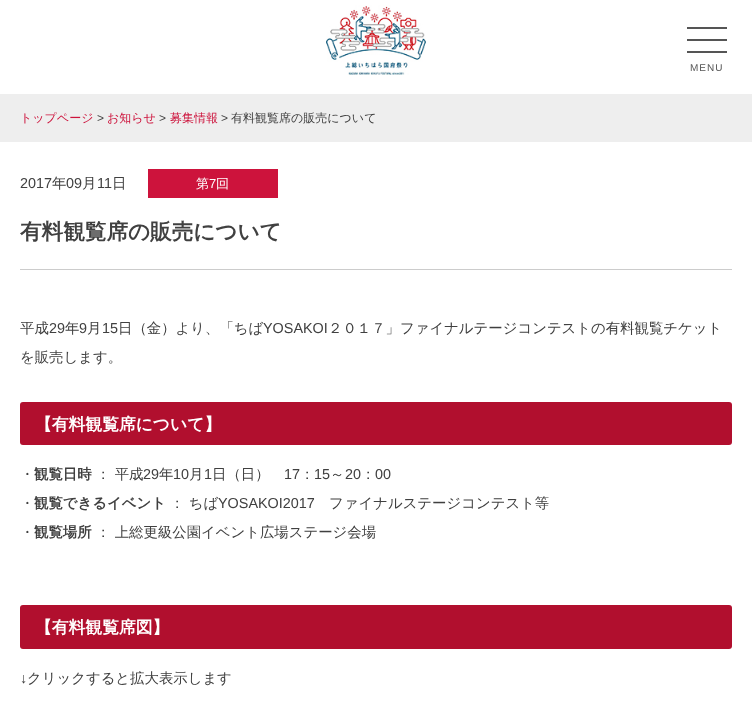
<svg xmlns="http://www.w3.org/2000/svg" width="752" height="702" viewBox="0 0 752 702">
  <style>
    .t1 { font: 10px Liberation Sans; letter-spacing: 1px; fill: #555; }
    .t2 { font: 500 12px WenQuanYi Zen Hei; fill: #cd133c; }
    .t3 { font: 12px Liberation Sans; fill: #404040; }
    .t4 { font: 500 12px WenQuanYi Zen Hei; fill: #404040; }
    .t5 { font: 14.4px Liberation Sans; fill: #404040; }
    .t6 { font: 500 14.4px WenQuanYi Zen Hei; fill: #404040; }
    .t7 { font: 500 13px WenQuanYi Zen Hei; fill: #fff; }
    .t8 { font: 13px Liberation Sans; fill: #fff; }
    .t9 { font: bold 21.6px WenQuanYi Zen Hei; fill: #404040; }
    .t10 { font: bold 16.8px WenQuanYi Zen Hei; fill: #fff; }
    .t11 { font: bold 14.4px WenQuanYi Zen Hei; fill: #404040; }
  </style>
  <rect width="100%" height="100%" fill="#fff"/>
  <image x="326" y="5" width="100" height="70" href="images/1.png"/>
  <rect x="687" y="27" width="40" height="2" fill="#555"/>
  <rect x="687" y="39" width="40" height="2" fill="#555"/>
  <rect x="687" y="51" width="40" height="2" fill="#555"/>
  <text x="690" y="71" class="t1">MENU</text>
  <rect x="0" y="94" width="752" height="48" fill="#eee"/>
  <text x="20" y="122" class="t2">トップページ</text>
  <text x="97" y="122" class="t3">&gt;</text>
  <text x="107" y="122" class="t2">お知らせ</text>
  <text x="159" y="122" class="t3">&gt;</text>
  <text x="170" y="122" class="t2">募集情報</text>
  <text x="221" y="122" class="t3">&gt;</text>
  <text x="231" y="122" class="t4">有料観覧席の販売について</text>
  <text x="20" y="188" class="t5">2017</text>
  <text x="52" y="188" class="t6">年</text>
  <text x="66" y="188" class="t5">09</text>
  <text x="82" y="188" class="t6">月</text>
  <text x="97" y="188" class="t5">11</text>
  <text x="112" y="188" class="t6">日</text>
  <rect x="148" y="169" width="130" height="29" fill="#cd133c"/>
  <text x="196" y="188" class="t7">第</text>
  <text x="209" y="188" class="t8">7</text>
  <text x="216" y="188" class="t7">回</text>
  <rect x="20" y="269" width="712" height="1" fill="#ccc"/>
  <text x="20" y="239" class="t9">有料観覧席の販売について</text>
  <text x="20" y="333" class="t6">平成</text>
  <text x="49" y="333" class="t5">29</text>
  <text x="65" y="333" class="t6">年</text>
  <text x="79" y="333" class="t5">9</text>
  <text x="87" y="333" class="t6">月</text>
  <text x="102" y="333" class="t5">15</text>
  <text x="118" y="333" class="t6">日（金）より、「ちば</text>
  <text x="263" y="333" class="t5">YOSAKOI</text>
  <text x="328" y="333" class="t6">２０１７」ファイナルテージコンテストの有料観覧チケット</text>
  <text x="20" y="362" class="t6">を販売します。</text>
  <rect x="20" y="402" width="712" height="43" rx="3" fill="#b10f2e"/>
  <text x="35" y="430" class="t10">【有料観覧席について】</text>
  <text x="20" y="479" class="t6">・</text>
  <text x="34" y="479" class="t11">観覧日時</text>
  <text x="96" y="479" class="t6">： 平成</text>
  <text x="143" y="479" class="t5">29</text>
  <text x="159" y="479" class="t6">年</text>
  <text x="173" y="479" class="t5">10</text>
  <text x="189" y="479" class="t6">月</text>
  <text x="204" y="479" class="t5">1</text>
  <text x="212" y="479" class="t6">日（日）</text>
  <text x="284" y="479" class="t5">17</text>
  <text x="300" y="479" class="t6">：</text>
  <text x="314" y="479" class="t5">15</text>
  <text x="330" y="479" class="t6">～</text>
  <text x="345" y="479" class="t5">20</text>
  <text x="361" y="479" class="t6">：</text>
  <text x="375" y="479" class="t5">00</text>
  <text x="20" y="508" class="t6">・</text>
  <text x="34" y="508" class="t11">観覧できるイベント</text>
  <text x="170" y="508" class="t6">： ちば</text>
  <text x="218" y="508" class="t5">YOSAKOI2017</text>
  <text x="329" y="508" class="t6">ファイナルステージコンテスト等</text>
  <text x="20" y="537" class="t6">・</text>
  <text x="34" y="537" class="t11">観覧場所</text>
  <text x="96" y="537" class="t6">： 上総更級公園イベント広場ステージ会場</text>
  <rect x="20" y="605" width="712" height="44" rx="3" fill="#b10f2e"/>
  <text x="35" y="633" class="t10">【有料観覧席図】</text>
  <text x="20" y="683" class="t5">↓</text>
  <text x="27" y="683" class="t6">クリックすると拡大表示します</text>
</svg>
